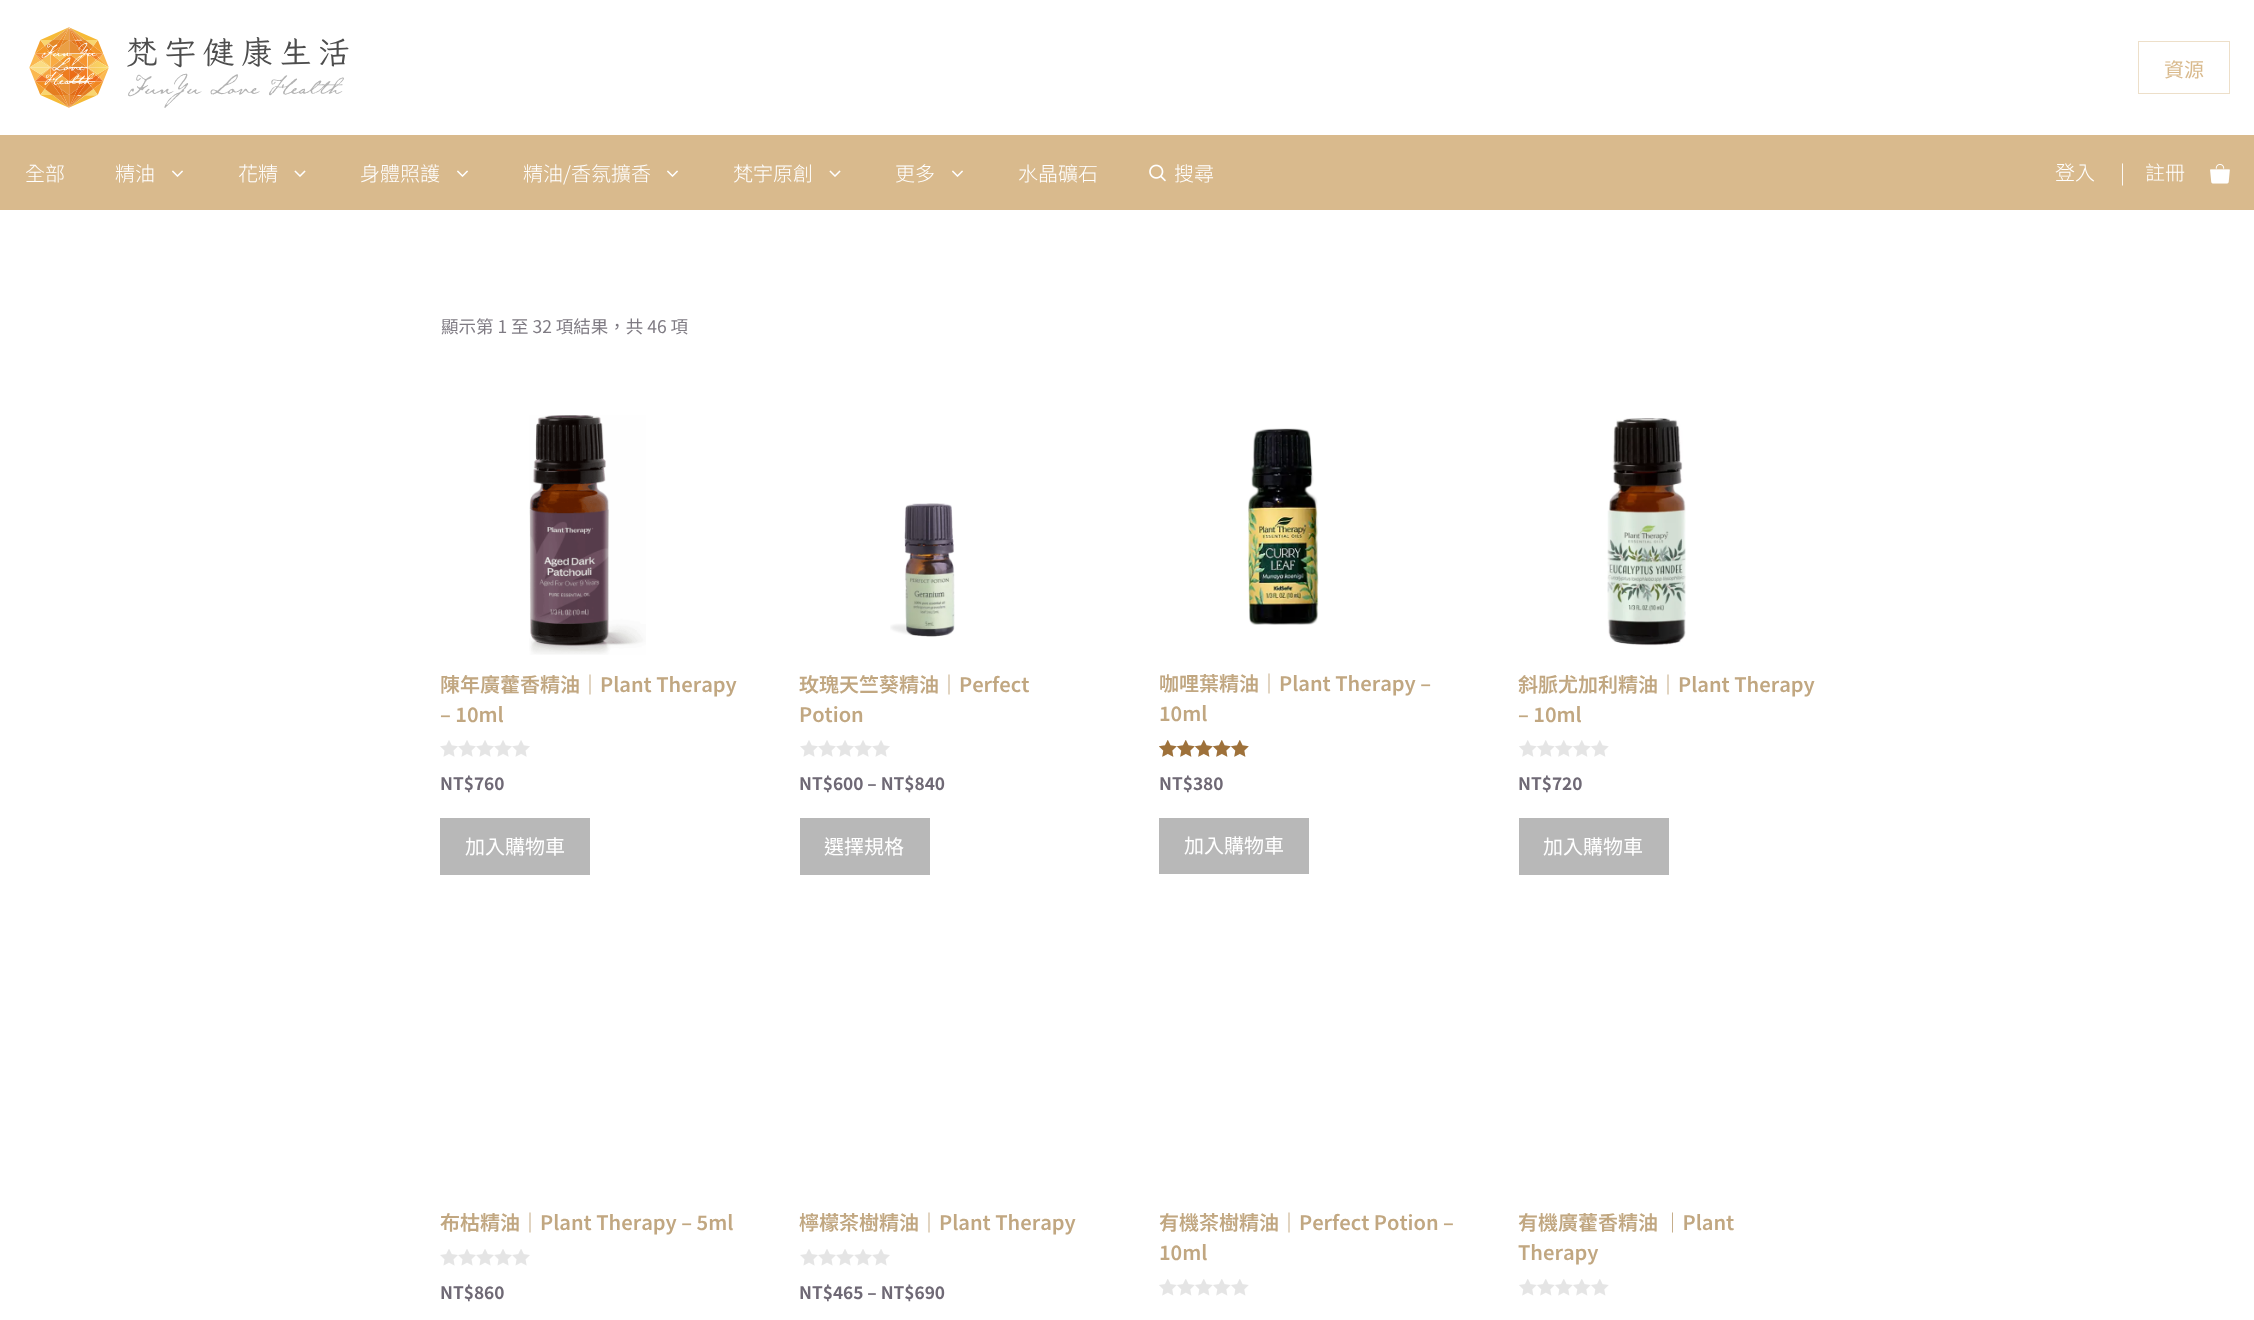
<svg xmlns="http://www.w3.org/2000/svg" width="2254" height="1320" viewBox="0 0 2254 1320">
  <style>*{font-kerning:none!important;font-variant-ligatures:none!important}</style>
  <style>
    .t1 { font: 20px Noto Sans TC; fill: #d9ba8d; }
    .t2 { font: 300 20px Noto Sans TC; fill: #fff; }
    .t3 { font: 17.5px Noto Sans TC; fill: #7f7b83; }
    .t4 { font: 600 20px Noto Sans TC; fill: #c1a781; }
    .t5 { font: bold 17.25px Noto Sans TC; fill: #6f6975; }
    .t6 { font: 20px Noto Sans TC; fill: #fff; }
  </style>
  <rect width="100%" height="100%" fill="#fff"/>
  <image x="29" y="27" width="320" height="81" href="images/1.png"/>
  <rect x="2138.5" y="41.5" width="91" height="52" fill="none" stroke="#eddfc9"/>
  <text x="2164" y="77" class="t1">資源</text>
  <rect x="0" y="135" width="2254" height="75" fill="#d9ba8d"/>
  <text x="25" y="181" class="t2">全部</text>
  <text x="115" y="181" class="t2">精油</text>
  <image x="172" y="170" width="11" height="7" href="images/2.png"/>
  <text x="238" y="181" class="t2">花精</text>
  <image x="294" y="170" width="12" height="7" href="images/3.png"/>
  <text x="360" y="181" class="t2">身體照護</text>
  <image x="457" y="170" width="11" height="7" href="images/2.png"/>
  <text x="523" y="181" class="t2">精油/香氛擴香</text>
  <image x="667" y="170" width="11" height="7" href="images/2.png"/>
  <text x="733" y="181" class="t2">梵宇原創</text>
  <image x="829" y="170" width="12" height="7" href="images/3.png"/>
  <text x="895" y="181" class="t2">更多</text>
  <image x="952" y="170" width="11" height="7" href="images/2.png"/>
  <text x="1018" y="181" class="t2">水晶礦石</text>
  <image x="1149" y="164" width="17" height="18" href="images/4.png"/>
  <text x="1174" y="181" class="t2">搜尋</text>
  <text x="2055" y="180" class="t2">登入</text>
  <text x="2120" y="180" class="t2">|</text>
  <text x="2145" y="180" class="t2">註冊</text>
  <image x="2210" y="164" width="20" height="20" href="images/5.png"/>
  <text x="441" y="333" class="t3">顯示第 1 至 32 項結果，共 46 項</text>
  <image x="529" y="415" width="117" height="240" href="images/6.png"/>
  <text x="440" y="692" class="t4">陳年廣藿香精油｜Plant Therapy</text>
  <text x="440" y="722" class="t4">– 10ml</text>
  <image x="440" y="740" width="90" height="17" href="images/7.png"/>
  <text x="440" y="790" class="t5">NT$760</text>
  <rect x="440" y="818" width="150" height="57" fill="#b8b8b8"/>
  <text x="465" y="854" class="t6">加入購物車</text>
  <image x="890" y="503" width="65" height="134" href="images/8.png"/>
  <text x="799" y="692" class="t4">玫瑰天竺葵精油｜Perfect</text>
  <text x="799" y="722" class="t4">Potion</text>
  <image x="800" y="740" width="90" height="17" href="images/7.png"/>
  <text x="799" y="790" class="t5">NT$600 – NT$840</text>
  <rect x="800" y="818" width="130" height="57" fill="#b8b8b8"/>
  <text x="824" y="854" class="t6">選擇規格</text>
  <image x="1248" y="428" width="71" height="197" href="images/9.png"/>
  <text x="1159" y="691" class="t4">咖哩葉精油｜Plant Therapy –</text>
  <text x="1159" y="721" class="t4">10ml</text>
  <image x="1159" y="740" width="90" height="17" href="images/10.png"/>
  <image x="1159" y="740" width="90" height="17" href="images/11.png"/>
  <text x="1159" y="790" class="t5">NT$380</text>
  <rect x="1159" y="818" width="150" height="56" fill="#b8b8b8"/>
  <text x="1184" y="853" class="t6">加入購物車</text>
  <image x="1607" y="418" width="79" height="228" href="images/12.png"/>
  <text x="1518" y="692" class="t4">斜脈尤加利精油｜Plant Therapy</text>
  <text x="1518" y="722" class="t4">– 10ml</text>
  <image x="1519" y="740" width="90" height="17" href="images/10.png"/>
  <text x="1518" y="790" class="t5">NT$720</text>
  <rect x="1519" y="818" width="150" height="57" fill="#b8b8b8"/>
  <text x="1543" y="854" class="t6">加入購物車</text>
  <text x="440" y="1230" class="t4">布枯精油｜Plant Therapy – 5ml</text>
  <image x="440" y="1249" width="90" height="17" href="images/13.png"/>
  <text x="440" y="1299" class="t5">NT$860</text>
  <text x="799" y="1230" class="t4">檸檬茶樹精油｜Plant Therapy</text>
  <image x="800" y="1249" width="90" height="17" href="images/13.png"/>
  <text x="799" y="1299" class="t5">NT$465 – NT$690</text>
  <text x="1159" y="1230" class="t4">有機茶樹精油｜Perfect Potion –</text>
  <text x="1159" y="1260" class="t4">10ml</text>
  <image x="1159" y="1279" width="90" height="17" href="images/14.png"/>
  <text x="1518" y="1230" class="t4">有機廣藿香精油 ｜Plant</text>
  <text x="1518" y="1260" class="t4">Therapy</text>
  <image x="1519" y="1279" width="90" height="17" href="images/14.png"/>
</svg>
